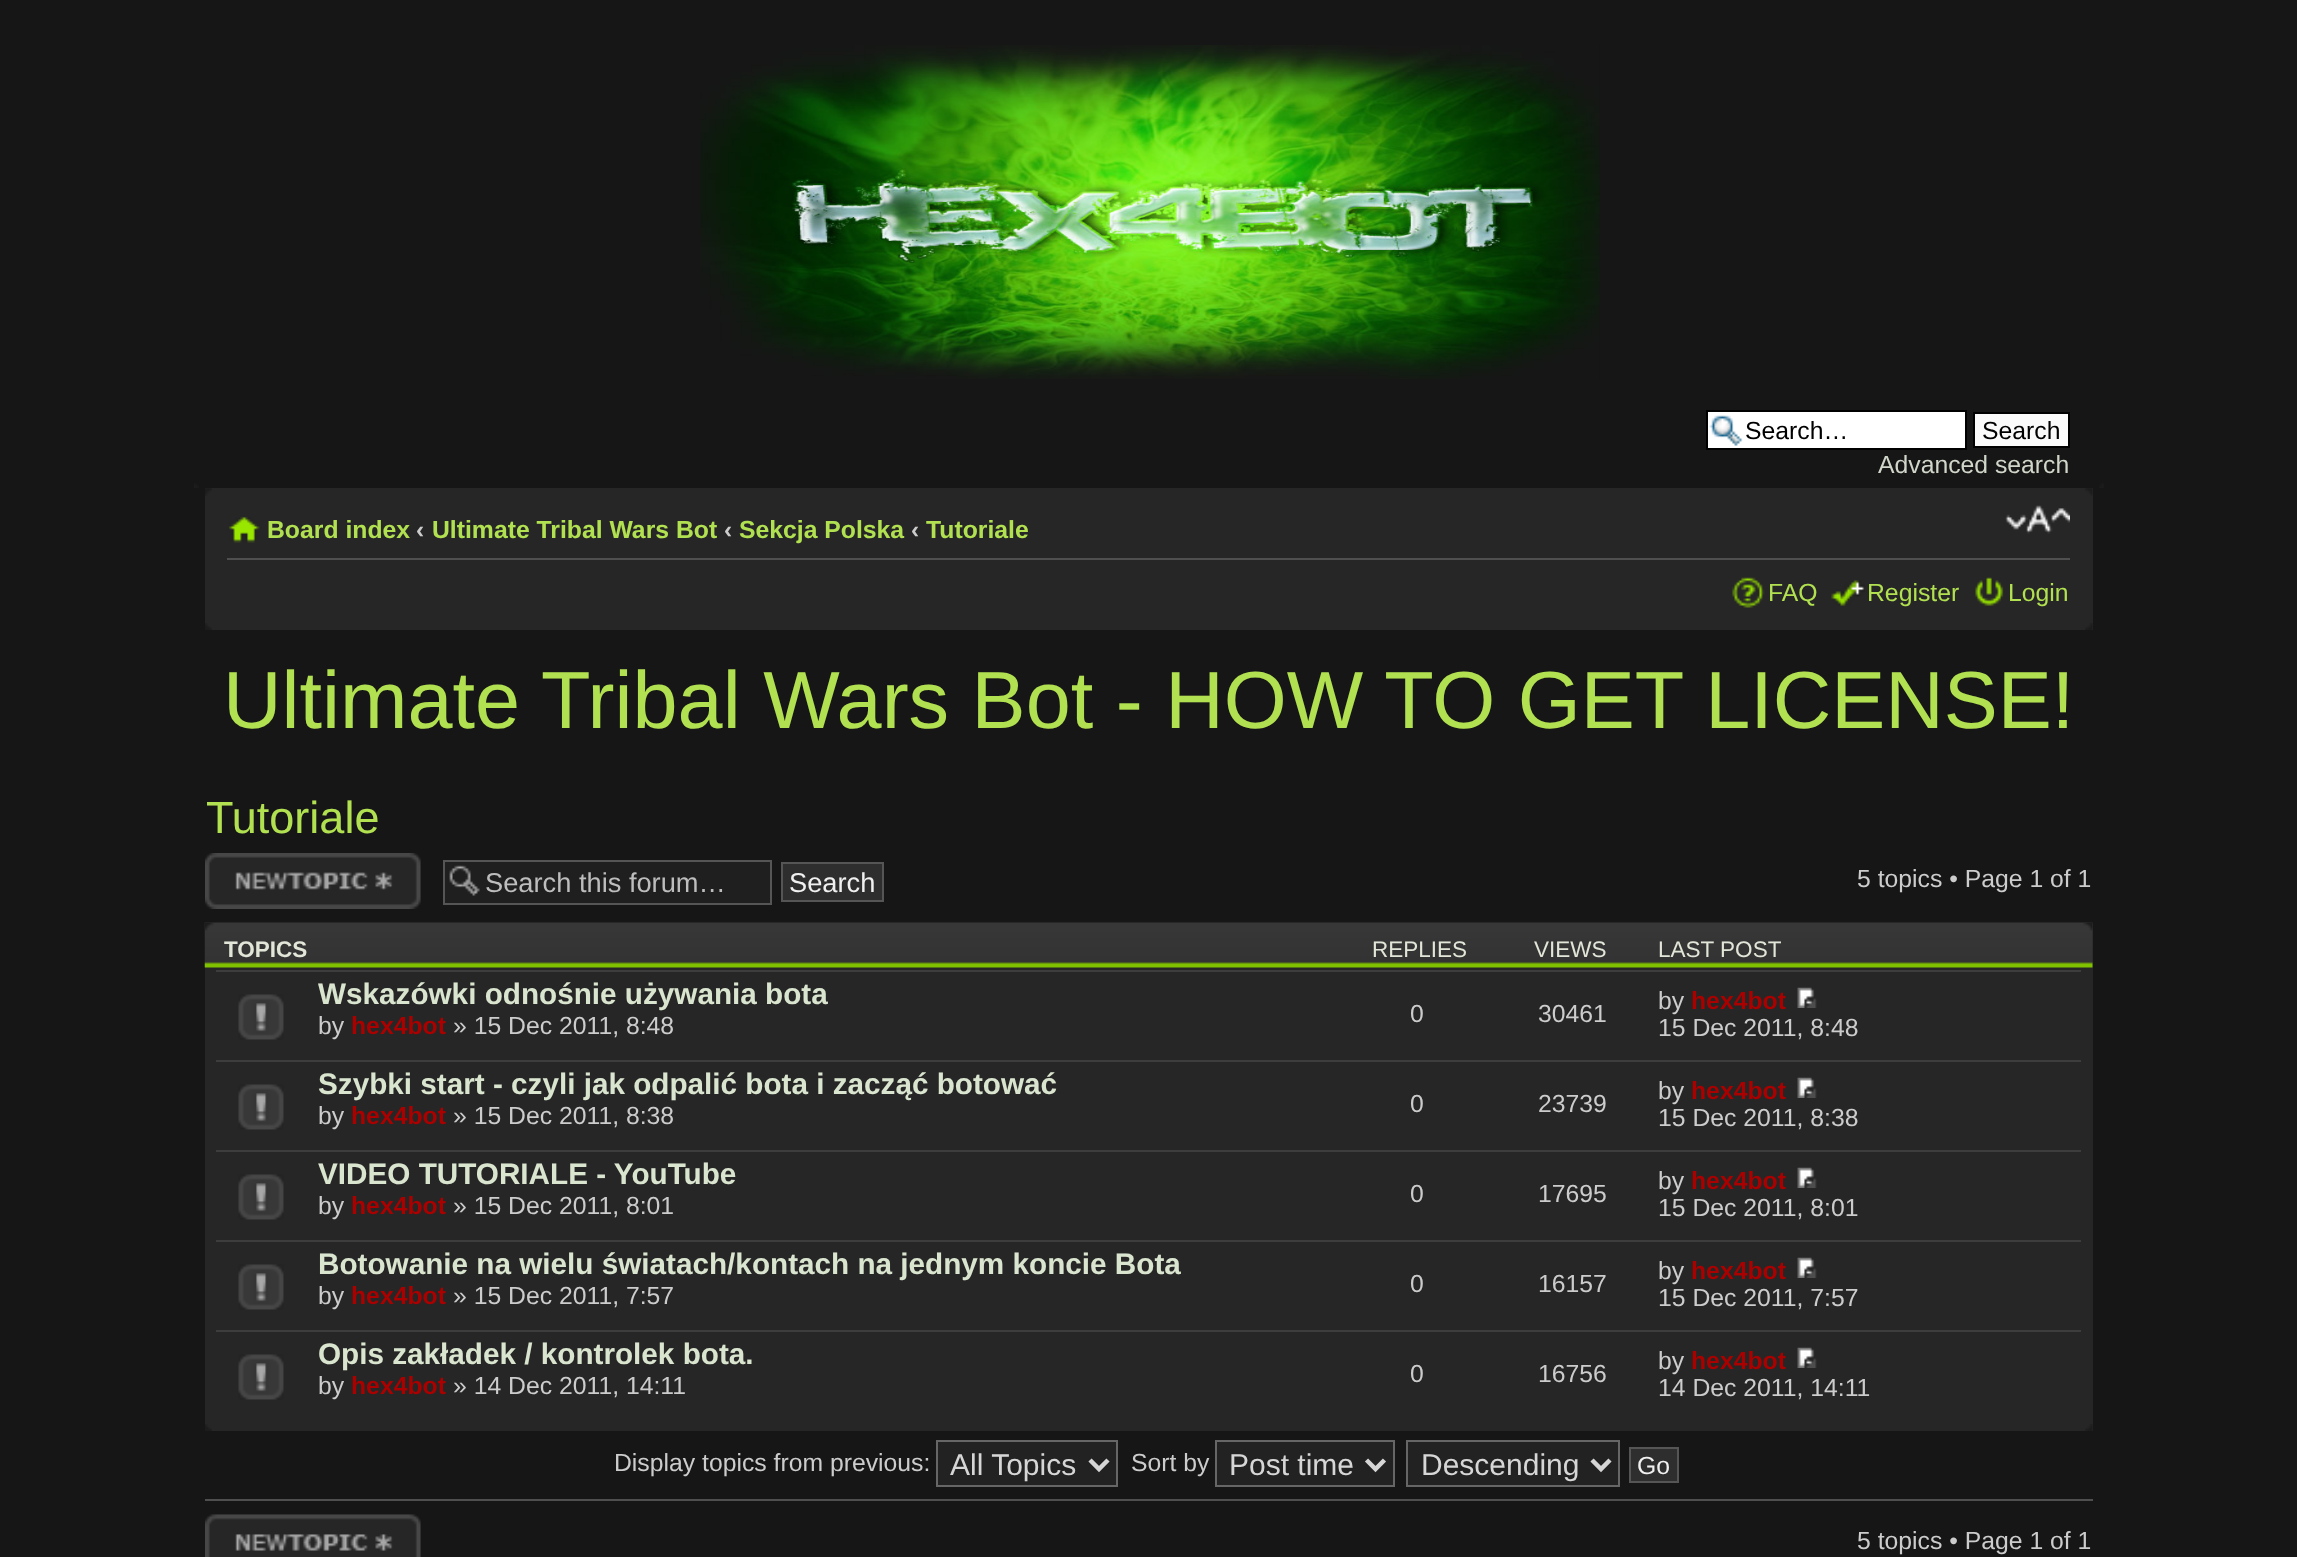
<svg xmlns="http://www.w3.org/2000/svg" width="2297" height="1557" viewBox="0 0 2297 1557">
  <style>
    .t1 { font: 24.75px Liberation Sans; fill: #000; }
    .t2 { font: 24.75px Liberation Sans; fill: #d0d6c9; }
    .t3 { font: bold 24.75px Liberation Sans; fill: #b1e051; }
    .t4 { font: bold 24.75px Liberation Sans; fill: #ccc; }
    .t5 { font: 24.75px Liberation Sans; fill: #b1e051; }
    .t6 { font: 81px Liberation Sans; fill: #b1e051; }
    .t7 { font: 45px Liberation Sans; fill: #b1e051; }
    .t8 { font: 27.25px Liberation Sans; fill: #bdbdbd; }
    .t9 { font: 27.25px Liberation Sans; fill: #f0f0f0; }
    .t10 { font: 24.75px Liberation Sans; fill: #ccc; }
    .t11 { font: bold 22.5px Liberation Sans; fill: #e1e6d8; }
    .t12 { font: 22.5px Liberation Sans; fill: #e1e6d8; }
    .t13 { font: bold 29.7px Liberation Sans; fill: #dae5cf; }
    .t14 { font: bold 24.75px Liberation Sans; fill: #a00; }
    .t15 { font: 30px Liberation Sans; fill: #d6d6d6; }
    .t16 { font: 24.75px Liberation Sans; fill: #f0f0f0; }
  </style>
  <rect width="100%" height="100%" fill="#161616"/>
  <image x="700" y="45" width="900" height="334" href="images/1.png"/>
  <rect x="1708" y="412" width="257" height="36" fill="#fff"/>
  <image x="1709" y="415" width="34" height="31" href="images/2.png"/>
  <rect x="1707" y="411" width="259" height="38" fill="none" stroke="#000" stroke-width="2"/>
  <text x="1745" y="439" class="t1">Search…</text>
  <rect x="1974" y="413" width="95" height="34" fill="#fafafa" stroke="#000" stroke-width="2"/>
  <text x="1982" y="439" class="t1">Search</text>
  <text x="1878" y="473" class="t2">Advanced search</text>
  <image x="194" y="483" width="5" height="5" href="images/3.png"/>
  <image x="2099" y="483" width="5" height="5" href="images/4.png"/>
  <rect x="205" y="488" width="1888" height="142" fill="#262626"/>
  <image x="205" y="488" width="7" height="8" href="images/5.png"/>
  <image x="2085" y="488" width="8" height="8" href="images/6.png"/>
  <rect x="227" y="558" width="1843" height="2" fill="#4f4f4f"/>
  <image x="229" y="517" width="31" height="26" href="images/7.png"/>
  <text x="267" y="538" class="t3">Board index</text>
  <text x="416" y="538" class="t4">‹</text>
  <text x="432" y="538" class="t3">Ultimate Tribal Wars Bot</text>
  <text x="724" y="538" class="t4">‹</text>
  <text x="739" y="538" class="t3">Sekcja Polska</text>
  <text x="911" y="538" class="t4">‹</text>
  <text x="926" y="538" class="t3">Tutoriale</text>
  <image x="2005" y="505" width="65" height="29" href="images/8.png"/>
  <image x="1732" y="577" width="33" height="31" href="images/9.png"/>
  <text x="1768" y="601" class="t5">FAQ</text>
  <image x="1831" y="580" width="34" height="26" href="images/10.png"/>
  <text x="1867" y="601" class="t5">Register</text>
  <image x="1975" y="577" width="29" height="29" href="images/11.png"/>
  <text x="2008" y="601" class="t5">Login</text>
  <image x="205" y="623" width="7" height="7" href="images/12.png"/>
  <image x="2085" y="623" width="8" height="7" href="images/13.png"/>
  <text x="223" y="728" class="t6">Ultimate Tribal Wars Bot - HOW TO GET LICENSE!</text>
  <text x="206" y="833" class="t7">Tutoriale</text>
  <image x="205" y="853" width="216" height="56" href="images/14.png"/>
  <rect x="445" y="862" width="325" height="41" fill="#1f1f1f"/>
  <image x="449" y="865" width="31" height="31" href="images/15.png"/>
  <rect x="444" y="861" width="327" height="43" fill="none" stroke="#555" stroke-width="2"/>
  <text x="485" y="892" class="t8">Search this forum…</text>
  <rect x="782" y="863" width="101" height="38" fill="#2e2e2e" stroke="#555" stroke-width="2"/>
  <text x="789" y="892" class="t9">Search</text>
  <text x="1857" y="887" class="t10">5 topics • Page 1 of 1</text>
  <rect x="205" y="923" width="1888" height="508" fill="#262626"/>
  <image x="204" y="922" width="1889" height="46" href="images/16.png"/>
  <image x="205" y="922" width="9" height="9" href="images/17.png"/>
  <image x="2083" y="922" width="10" height="9" href="images/18.png"/>
  <text x="224" y="957" class="t11">TOPICS</text>
  <text x="1372" y="957" class="t12">REPLIES</text>
  <text x="1534" y="957" class="t12">VIEWS</text>
  <text x="1658" y="957" class="t12">LAST POST</text>
  <rect x="216" y="970" width="1865" height="2" fill="#3d3d3d"/>
  <image x="238" y="994" width="46" height="46" href="images/19.png"/>
  <text x="318" y="1004" class="t13">Wskazówki odnośnie używania bota</text>
  <text x="318" y="1034" class="t10">by</text>
  <text x="351" y="1034" class="t14">hex4bot</text>
  <text x="453" y="1034" class="t10">» 15 Dec 2011, 8:48</text>
  <text x="1410" y="1022" class="t10">0</text>
  <text x="1538" y="1022" class="t10">30461</text>
  <text x="1658" y="1009" class="t10">by</text>
  <text x="1691" y="1009" class="t14">hex4bot</text>
  <image x="1797" y="987" width="20" height="21" href="images/20.png"/>
  <text x="1658" y="1036" class="t10">15 Dec 2011, 8:48</text>
  <rect x="216" y="1060" width="1865" height="2" fill="#3d3d3d"/>
  <image x="238" y="1084" width="46" height="46" href="images/19.png"/>
  <text x="318" y="1094" class="t13">Szybki start - czyli jak odpalić bota i zacząć botować</text>
  <text x="318" y="1124" class="t10">by</text>
  <text x="351" y="1124" class="t14">hex4bot</text>
  <text x="453" y="1124" class="t10">» 15 Dec 2011, 8:38</text>
  <text x="1410" y="1112" class="t10">0</text>
  <text x="1538" y="1112" class="t10">23739</text>
  <text x="1658" y="1099" class="t10">by</text>
  <text x="1691" y="1099" class="t14">hex4bot</text>
  <image x="1797" y="1077" width="20" height="21" href="images/20.png"/>
  <text x="1658" y="1126" class="t10">15 Dec 2011, 8:38</text>
  <rect x="216" y="1150" width="1865" height="2" fill="#3d3d3d"/>
  <image x="238" y="1174" width="46" height="46" href="images/19.png"/>
  <text x="318" y="1184" class="t13">VIDEO TUTORIALE - YouTube</text>
  <text x="318" y="1214" class="t10">by</text>
  <text x="351" y="1214" class="t14">hex4bot</text>
  <text x="453" y="1214" class="t10">» 15 Dec 2011, 8:01</text>
  <text x="1410" y="1202" class="t10">0</text>
  <text x="1538" y="1202" class="t10">17695</text>
  <text x="1658" y="1189" class="t10">by</text>
  <text x="1691" y="1189" class="t14">hex4bot</text>
  <image x="1797" y="1167" width="20" height="21" href="images/20.png"/>
  <text x="1658" y="1216" class="t10">15 Dec 2011, 8:01</text>
  <rect x="216" y="1240" width="1865" height="2" fill="#3d3d3d"/>
  <image x="238" y="1264" width="46" height="46" href="images/19.png"/>
  <text x="318" y="1274" class="t13">Botowanie na wielu światach/kontach na jednym koncie Bota</text>
  <text x="318" y="1304" class="t10">by</text>
  <text x="351" y="1304" class="t14">hex4bot</text>
  <text x="453" y="1304" class="t10">» 15 Dec 2011, 7:57</text>
  <text x="1410" y="1292" class="t10">0</text>
  <text x="1538" y="1292" class="t10">16157</text>
  <text x="1658" y="1279" class="t10">by</text>
  <text x="1691" y="1279" class="t14">hex4bot</text>
  <image x="1797" y="1257" width="20" height="21" href="images/20.png"/>
  <text x="1658" y="1306" class="t10">15 Dec 2011, 7:57</text>
  <rect x="216" y="1330" width="1865" height="2" fill="#3d3d3d"/>
  <image x="238" y="1354" width="46" height="46" href="images/19.png"/>
  <text x="318" y="1364" class="t13">Opis zakładek / kontrolek bota.</text>
  <text x="318" y="1394" class="t10">by</text>
  <text x="351" y="1394" class="t14">hex4bot</text>
  <text x="453" y="1394" class="t10">» 14 Dec 2011, 14:11</text>
  <text x="1410" y="1382" class="t10">0</text>
  <text x="1538" y="1382" class="t10">16756</text>
  <text x="1658" y="1369" class="t10">by</text>
  <text x="1691" y="1369" class="t14">hex4bot</text>
  <image x="1797" y="1347" width="20" height="21" href="images/20.png"/>
  <text x="1658" y="1396" class="t10">14 Dec 2011, 14:11</text>
  <image x="205" y="1424" width="7" height="7" href="images/12.png"/>
  <image x="2085" y="1424" width="8" height="7" href="images/13.png"/>
  <text x="614" y="1471" class="t10">Display topics from previous:</text>
  <rect x="937" y="1441" width="180" height="45" fill="#222" stroke="#666" stroke-width="2"/>
  <path d="M1090 1460L1099 1469L1108 1460" fill="none" stroke="#d6d6d6" stroke-width="4.5"/>
  <text x="950" y="1475" class="t15">All Topics</text>
  <text x="1131" y="1471" class="t10">Sort by</text>
  <rect x="1216" y="1441" width="178" height="45" fill="#222" stroke="#666" stroke-width="2"/>
  <path d="M1366.5 1460L1375.5 1469L1384.5 1460" fill="none" stroke="#d6d6d6" stroke-width="4.5"/>
  <text x="1229" y="1475" class="t15">Post time</text>
  <rect x="1407" y="1441" width="212" height="45" fill="#222" stroke="#666" stroke-width="2"/>
  <path d="M1592 1460L1601 1469L1610 1460" fill="none" stroke="#d6d6d6" stroke-width="4.5"/>
  <text x="1421" y="1475" class="t15">Descending</text>
  <rect x="1630" y="1448" width="48" height="34" fill="#2e2e2e" stroke="#555" stroke-width="2"/>
  <text x="1637" y="1474" class="t16">Go</text>
  <rect x="205" y="1499" width="1888" height="2" fill="#4f4f4f"/>
  <image x="205" y="1514" width="216" height="43" href="images/21.png"/>
  <text x="1857" y="1549" class="t10">5 topics • Page 1 of 1</text>
</svg>
